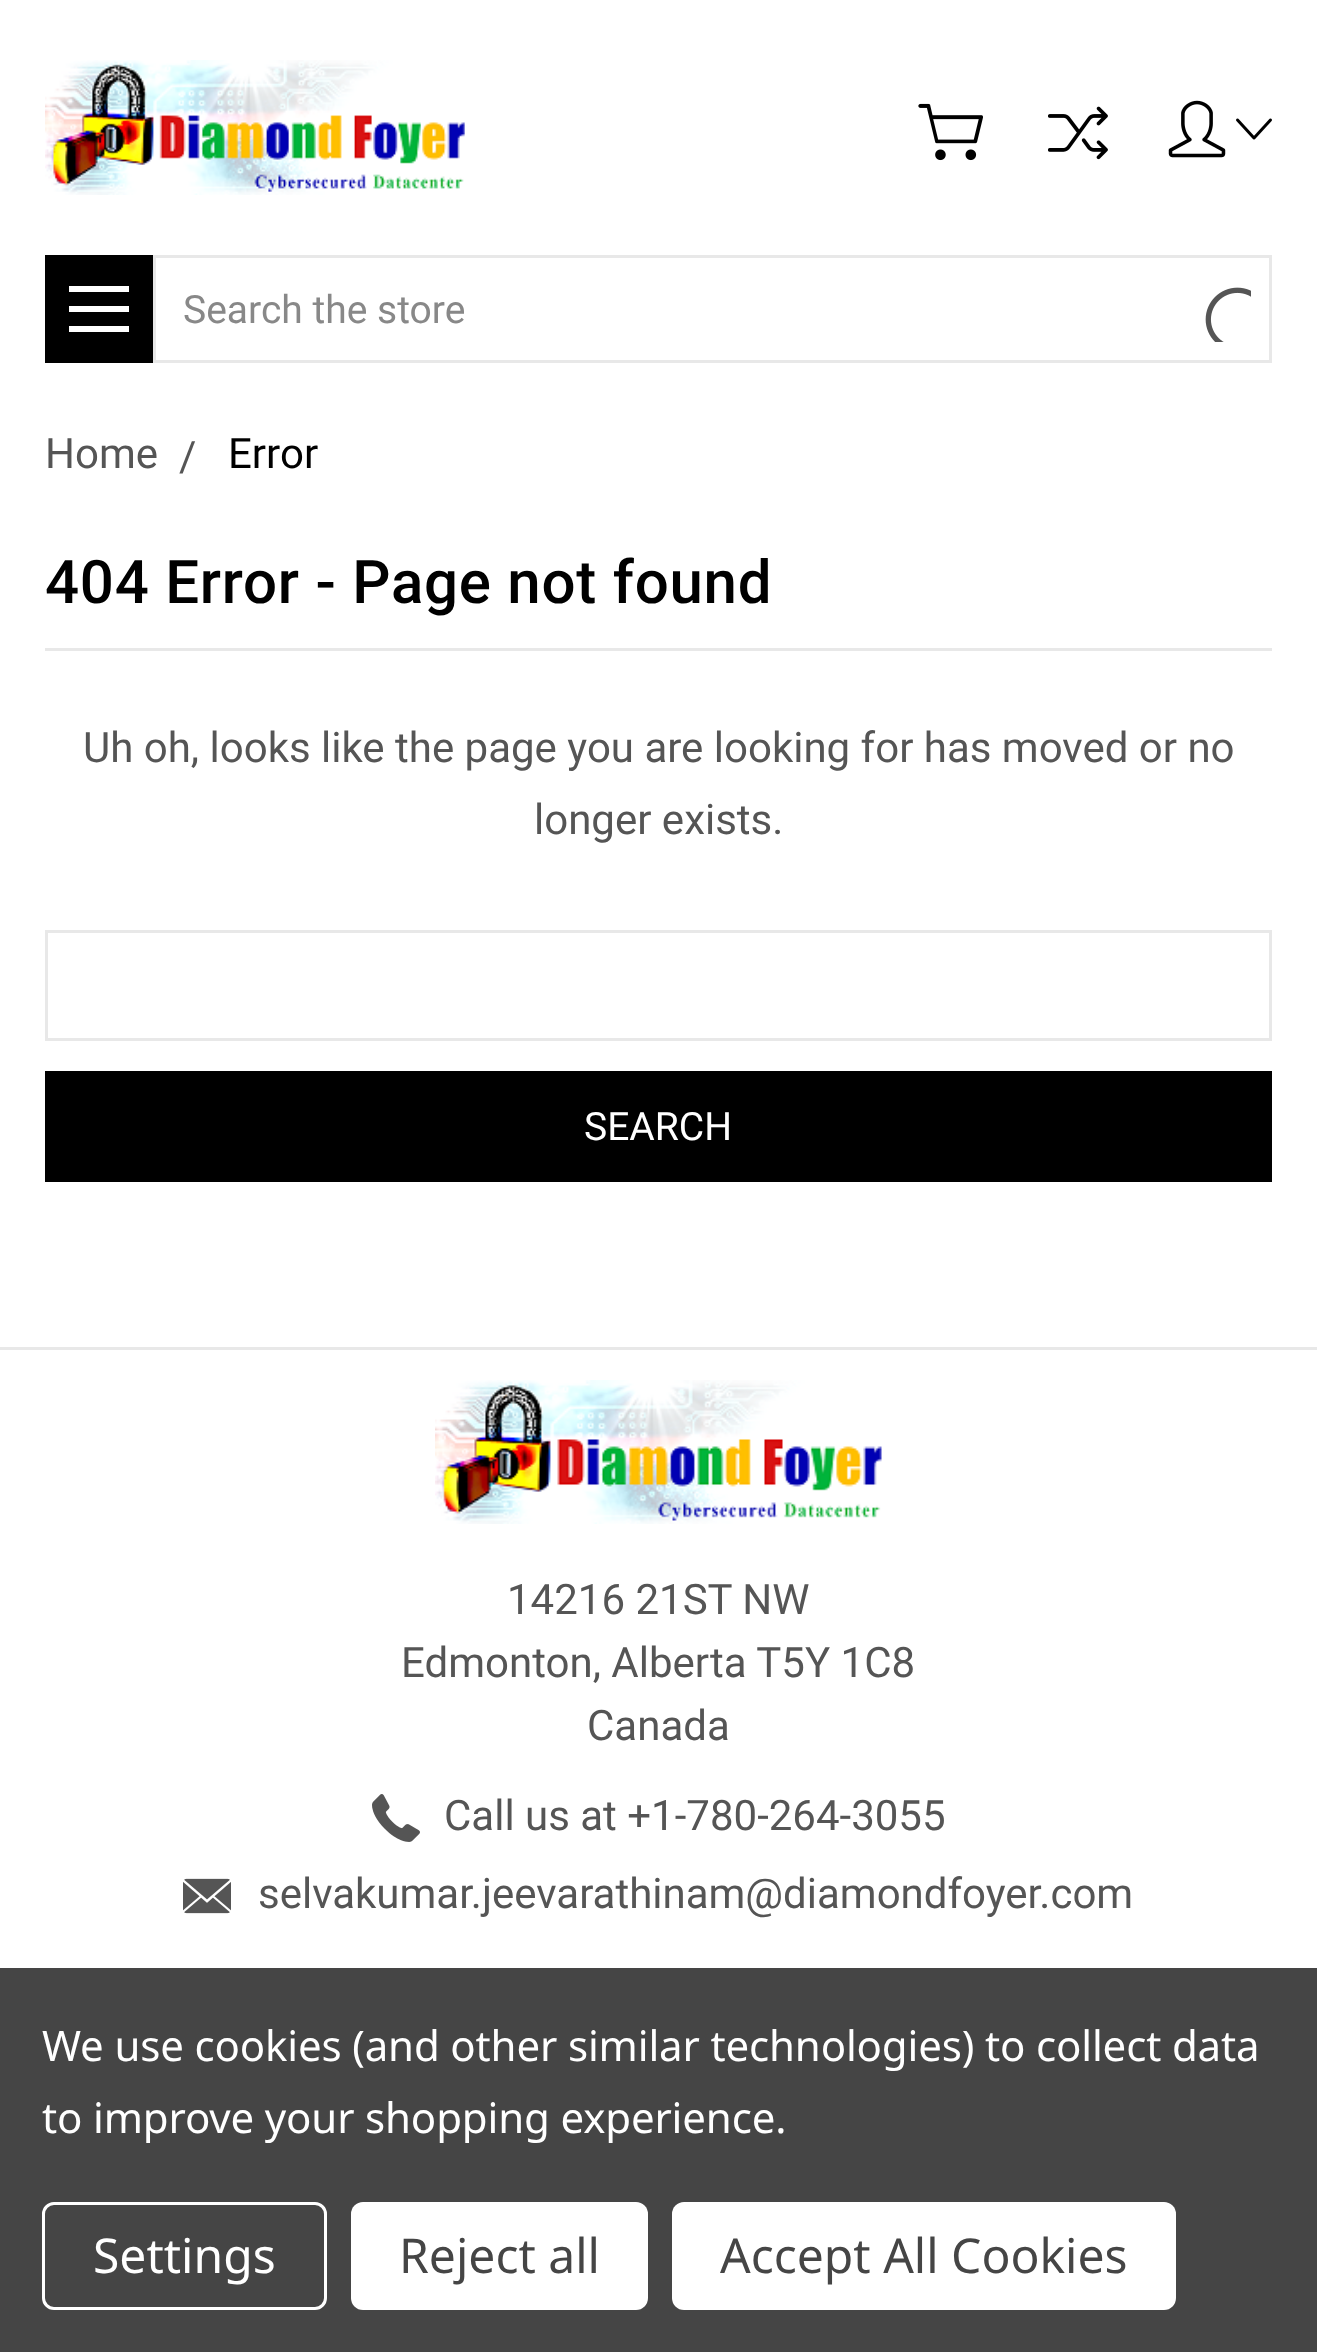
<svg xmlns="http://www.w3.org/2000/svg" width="1317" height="2352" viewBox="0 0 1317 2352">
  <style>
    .t1 { font: 39px Roboto; fill: #888; }
    .t2 { font: 42px Roboto; fill: #555; }
    .t3 { font: 42px Roboto; fill: #000; }
    .t4 { font: 500 60px Roboto; letter-spacing: 0.75px; fill: #000; }
    .t5 { font: 39px Roboto; fill: #fff; }
    .t6 { font: 42px Noto Sans; letter-spacing: -0.15px; fill: #fff; }
    .t7 { font: 48px Noto Sans; fill: #fff; }
    .t8 { font: 48px Noto Sans; fill: #454545; }
  </style>
  <rect width="100%" height="100%" fill="#fff"/>
  <image x="45" y="60" width="420" height="135" href="images/1.png"/>
  <image x="918" y="103" width="65" height="58" href="images/2.png"/>
  <image x="1048" y="106" width="60" height="54" href="images/3.png"/>
  <image x="1168" y="100" width="58" height="58" href="images/4.png"/>
  <image x="1236" y="118" width="36" height="22" href="images/5.png"/>
  <rect x="45" y="255" width="108" height="108" fill="#000"/>
  <path d="M69 286H129V292H69ZM69 306H129V312H69ZM69 326H129V332H69Z" fill="#fff"/>
  <rect x="154.5" y="256.5" width="1116" height="105" fill="none" stroke="#e8e8e8" stroke-width="3"/>
  <text x="183" y="323" class="t1">Search the store</text>
  <image x="1205" y="287" width="46" height="55" href="images/6.png"/>
  <text x="45" y="468" class="t2">Home</text>
  <text x="179" y="471" class="t2">/</text>
  <text x="228" y="468" class="t3">Error</text>
  <rect x="45" y="648" width="1227" height="3" fill="#e8e8e8"/>
  <text x="45" y="603" class="t4">404 Error - Page not found</text>
  <text x="83" y="762" class="t2">Uh oh, looks like the page you are looking for has moved or no</text>
  <text x="534" y="834" class="t2">longer exists.</text>
  <rect x="46.5" y="931.5" width="1224" height="108" fill="none" stroke="#e8e8e8" stroke-width="3"/>
  <rect x="45" y="1071" width="1227" height="111" fill="#000"/>
  <text x="584" y="1140" class="t5">SEARCH</text>
  <rect x="0" y="1347" width="1317" height="3" fill="#e8e8e8"/>
  <image x="435" y="1380" width="447" height="144" href="images/7.png"/>
  <text x="507" y="1614" class="t2">14216 21ST NW</text>
  <text x="401" y="1677" class="t2">Edmonton, Alberta T5Y 1C8</text>
  <text x="587" y="1740" class="t2">Canada</text>
  <image x="372" y="1794" width="48" height="48" href="images/8.png"/>
  <text x="444" y="1830" class="t2">Call us at +1-780-264-3055</text>
  <image x="183" y="1878" width="48" height="36" href="images/9.png"/>
  <text x="258" y="1908" class="t2">selvakumar.jeevarathinam@diamondfoyer.com</text>
  <rect x="0" y="1968" width="1317" height="384" fill="#454545"/>
  <text x="42" y="2061" class="t6">We use cookies (and other similar technologies) to collect data</text>
  <text x="42" y="2133" class="t6">to improve your shopping experience.</text>
  <rect x="43.5" y="2203.5" width="282" height="105" rx="10.5" fill="none" stroke="#fff" stroke-width="3"/>
  <text x="93" y="2273" class="t7">Settings</text>
  <rect x="351" y="2202" width="297" height="108" rx="12" fill="#fff"/>
  <text x="399" y="2273" class="t8">Reject all</text>
  <rect x="672" y="2202" width="504" height="108" rx="12" fill="#fff"/>
  <text x="720" y="2273" class="t8">Accept All Cookies</text>
</svg>
